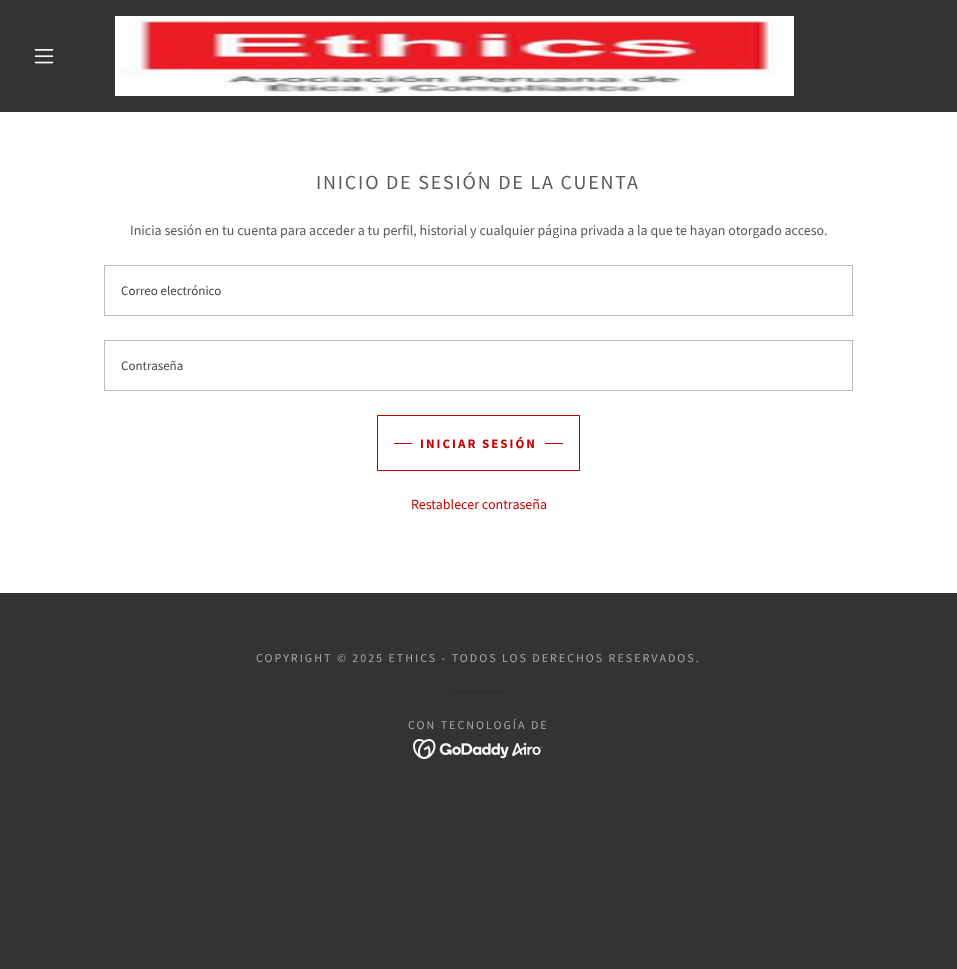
(async () => {
  const canvas = document.querySelector("canvas");
  canvas.width = 957;
  canvas.height = 969;
  const ctx = canvas.getContext("2d");
  ctx.miterLimit = 4;
  ctx.fontKerning = "normal";
  async function loadImage(src) {
    const img = new Image();
    img.src = src;
    await img.decode();
    return img;
  }

  ctx.fillStyle = "#333333";
  ctx.fillRect(0, 0, 957, 969);
  ctx.drawImage(await loadImage("img/1.png"), 34, 49, 20, 15);
  ctx.drawImage(await loadImage("img/2.png"), 115, 16, 679, 80);
  ctx.fillStyle = "#ffffff";
  ctx.fillRect(0, 112, 957, 481);
  ctx.strokeStyle = "#bbbbbb";
  ctx.strokeRect(104.5, 265.5, 748, 50);
  ctx.strokeRect(104.5, 340.5, 748, 50);
  ctx.strokeStyle = "#c70000";
  ctx.strokeRect(377.5, 415.5, 202, 55);
  for (const [x, y, w, h, color] of [
    [394, 443, 18, 1, "#c70000"],
    [545, 443, 18, 1, "#c70000"],
    [454, 691, 50, 1, "#2a2a2a"],
  ]) {
    ctx.fillStyle = color;
    ctx.fillRect(x, y, w, h);
  }
  ctx.drawImage(await loadImage("img/3.png"), 413, 739, 130, 20);
  ctx.letterSpacing = "1.8px";
  ctx.font = "20px Source Sans Pro";
  ctx.fillStyle = "#595959";
  ctx.fillText("INICIO DE SESIÓN DE LA CUENTA", 316, 189);
  ctx.letterSpacing = "0px";
  ctx.font = "14px Source Sans Pro";
  ctx.fillText("Inicia sesión en tu cuenta para acceder a tu perfil, historial y cualquier página privada a la que te hayan otorgado acceso.", 130, 235);
  ctx.font = "13px Source Sans Pro";
  ctx.fillStyle = "#474747";
  ctx.fillText("Correo electrónico", 121, 295);
  ctx.fillText("Contraseña", 121, 370);
  ctx.letterSpacing = "2px";
  ctx.font = "bold 13px Source Sans Pro";
  ctx.fillStyle = "#c70000";
  ctx.fillText("INICIAR SESIÓN", 420, 448);
  ctx.letterSpacing = "0px";
  ctx.font = "14px Source Sans Pro";
  ctx.fillText("Restablecer contraseña", 411, 509);
  ctx.letterSpacing = "2px";
  ctx.font = "12px Source Sans Pro";
  ctx.fillStyle = "#a9a9a9";
  ctx.fillText("COPYRIGHT © 2025 ETHICS - TODOS LOS DERECHOS RESERVADOS.", 256, 662);
  ctx.fillText("CON TECNOLOGÍA DE", 408, 729);
})();
